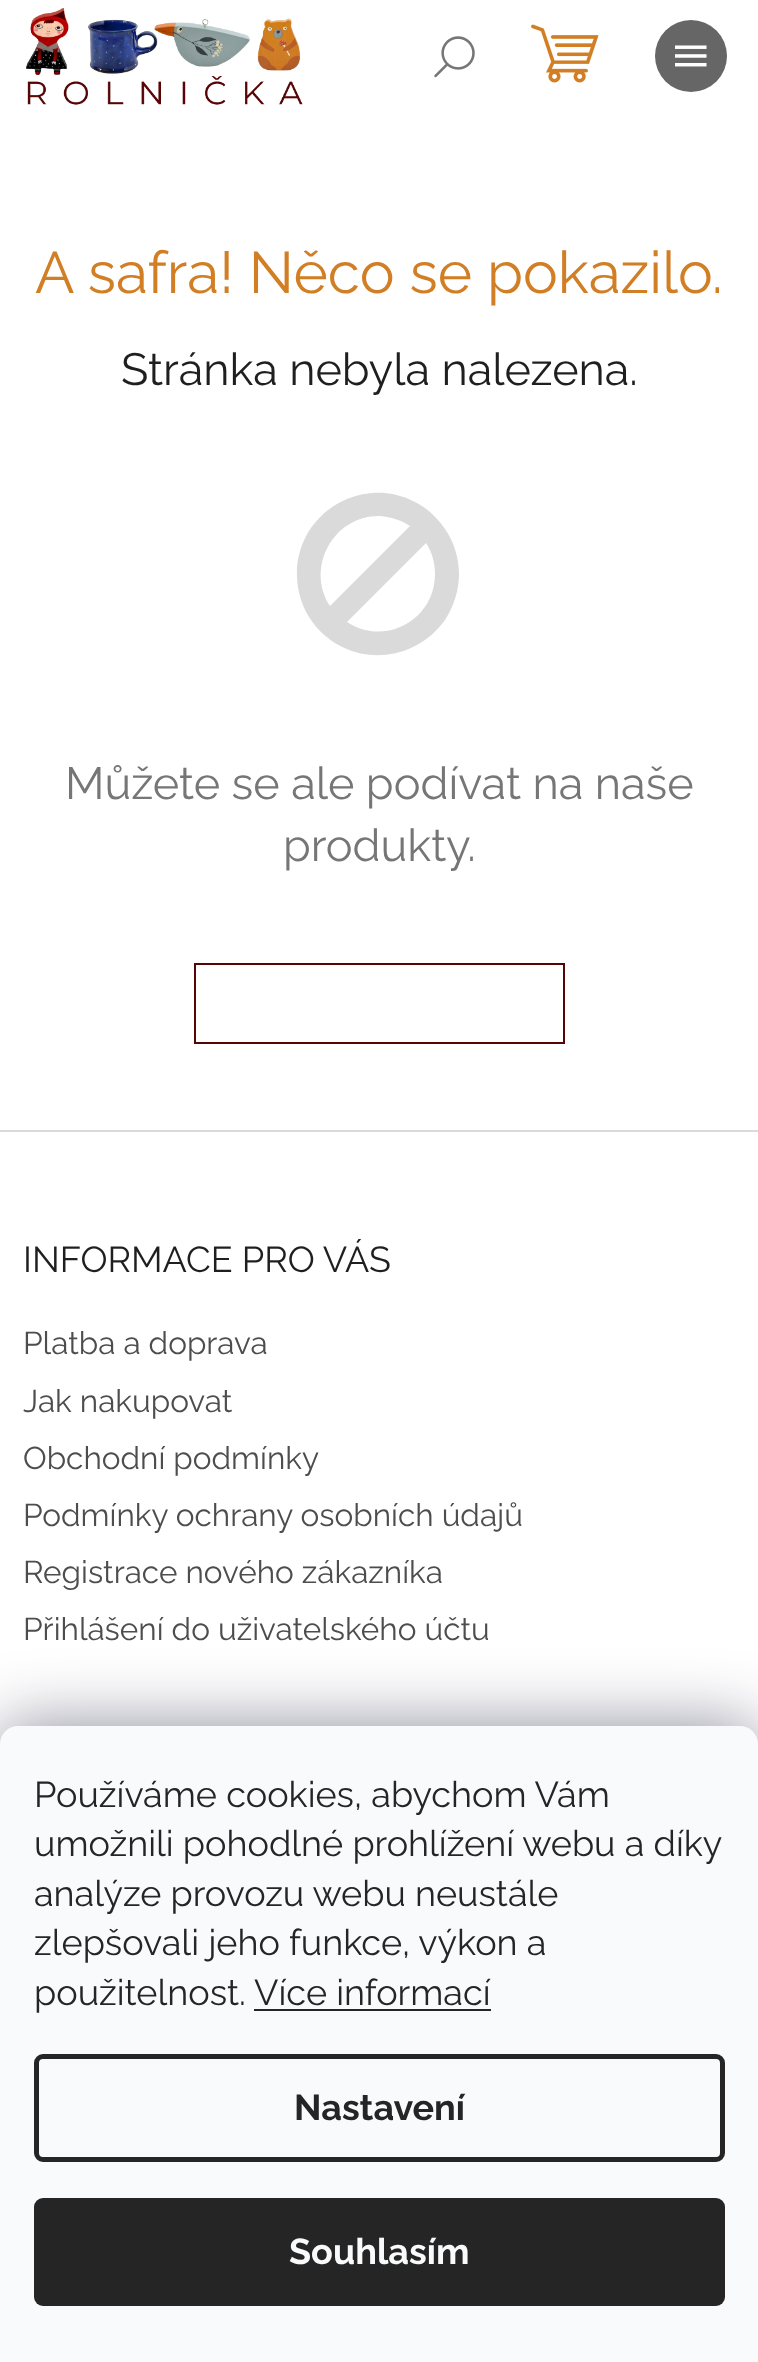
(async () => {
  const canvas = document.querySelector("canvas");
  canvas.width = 758;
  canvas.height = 2362;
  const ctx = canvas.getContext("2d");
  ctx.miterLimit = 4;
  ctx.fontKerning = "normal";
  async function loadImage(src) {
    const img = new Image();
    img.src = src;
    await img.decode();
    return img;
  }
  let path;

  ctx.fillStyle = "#ffffff";
  ctx.fillRect(0, 0, 758, 2362);
  ctx.drawImage(await loadImage("img/1.png"), 26, 8, 277, 97);
  ctx.drawImage(await loadImage("img/2.png"), 531, 24, 68, 59);
  ctx.drawImage(await loadImage("img/3.png"), 434, 36, 41, 42);
  ctx.fillStyle = "#666666";
  ctx.beginPath();
  ctx.arc(691, 56, 36, 0, Math.PI * 2);
  ctx.fill();
  ctx.drawImage(await loadImage("img/4.png"), 675, 45, 32, 22);
  ctx.fillStyle = "#dadada";
  path = new Path2D("M435 574C435 563 432 552 426 543L347 622C385 647 435 620 435 574ZM330 606L410 526C401 520 391 517 380 516C334 515 305 567 330 606ZM459 574C459 590 454 606 445 620C437 631 426 641 413 647C359 673 297 634 297 574C297 514 360 475 413 501C426 507 437 517 445 529C454 542 459 558 459 574Z");
  ctx.fill(path);
  ctx.strokeStyle = "#560506";
  ctx.lineWidth = 2;
  ctx.strokeRect(195, 964, 369, 79);
  ctx.fillRect(0, 1130, 758, 2);
  ctx.fillStyle = "rgba(27, 25, 57, 0.5)";
  ctx.filter = "blur(34px)";
  ctx.beginPath();
  ctx.roundRect(0, 1726, 758, 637, 18);
  ctx.fill();
  ctx.filter = "none";
  ctx.fillStyle = "#f8fafb";
  path = new Path2D("M18 1726H740C750 1726 758 1734 758 1744V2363H0V1744C0 1734 8 1726 18 1726Z");
  ctx.fill(path);
  ctx.fillStyle = "#252525";
  ctx.fillRect(254, 2009, 237, 2);
  ctx.beginPath();
  ctx.roundRect(36.5, 2056.5, 686, 103, 6.5);
  ctx.strokeStyle = "#252525";
  ctx.lineWidth = 5;
  ctx.stroke();
  ctx.beginPath();
  ctx.roundRect(34, 2198, 691, 108, 9);
  ctx.fill();
  ctx.font = "58.5px Raleway";
  ctx.fillStyle = "#d17e24";
  ctx.fillText("A safra! Něco se pokazilo.", 35, 293);
  ctx.font = "45px Raleway";
  ctx.fillStyle = "#1f1f1f";
  ctx.fillText("Stránka nebyla nalezena.", 121, 385);
  ctx.fillStyle = "#767676";
  ctx.fillText("Můžete se ale podívat na naše", 65, 799);
  ctx.fillText("produkty.", 283, 861);
  ctx.font = "36px Raleway";
  ctx.fillStyle = "#1f1f1f";
  ctx.fillText("INFORMACE PRO VÁS", 23, 1272);
  ctx.font = "31.5px Raleway";
  ctx.fillStyle = "#4d4d4d";
  for (const [text, x, y] of [
    ["Platba a doprava", 23, 1354],
    ["Jak nakupovat", 23, 1412],
    ["Obchodní podmínky", 23, 1469],
    ["Podmínky ochrany osobních údajů", 23, 1526],
    ["Registrace nového zákazníka", 23, 1583],
    ["Přihlášení do uživatelského účtu", 23, 1640],
  ]) {
    ctx.fillText(text, x, y);
  }
  ctx.font = "36px Raleway";
  ctx.fillStyle = "#252525";
  for (const [text, x, y] of [
    ["Používáme cookies, abychom Vám", 34, 1807],
    ["umožnili pohodlné prohlížení webu a díky", 34, 1856],
    ["analýze provozu webu neustále", 34, 1906],
    ["zlepšovali jeho funkce, výkon a", 34, 1955],
    ["použitelnost.", 34, 2005],
    ["Více informací", 254, 2005],
  ]) {
    ctx.fillText(text, x, y);
  }
  ctx.font = "bold 36px Raleway";
  ctx.fillText("Nastavení", 294, 2120);
  ctx.fillStyle = "#f8fafb";
  ctx.fillText("Souhlasím", 289, 2264);
})();
